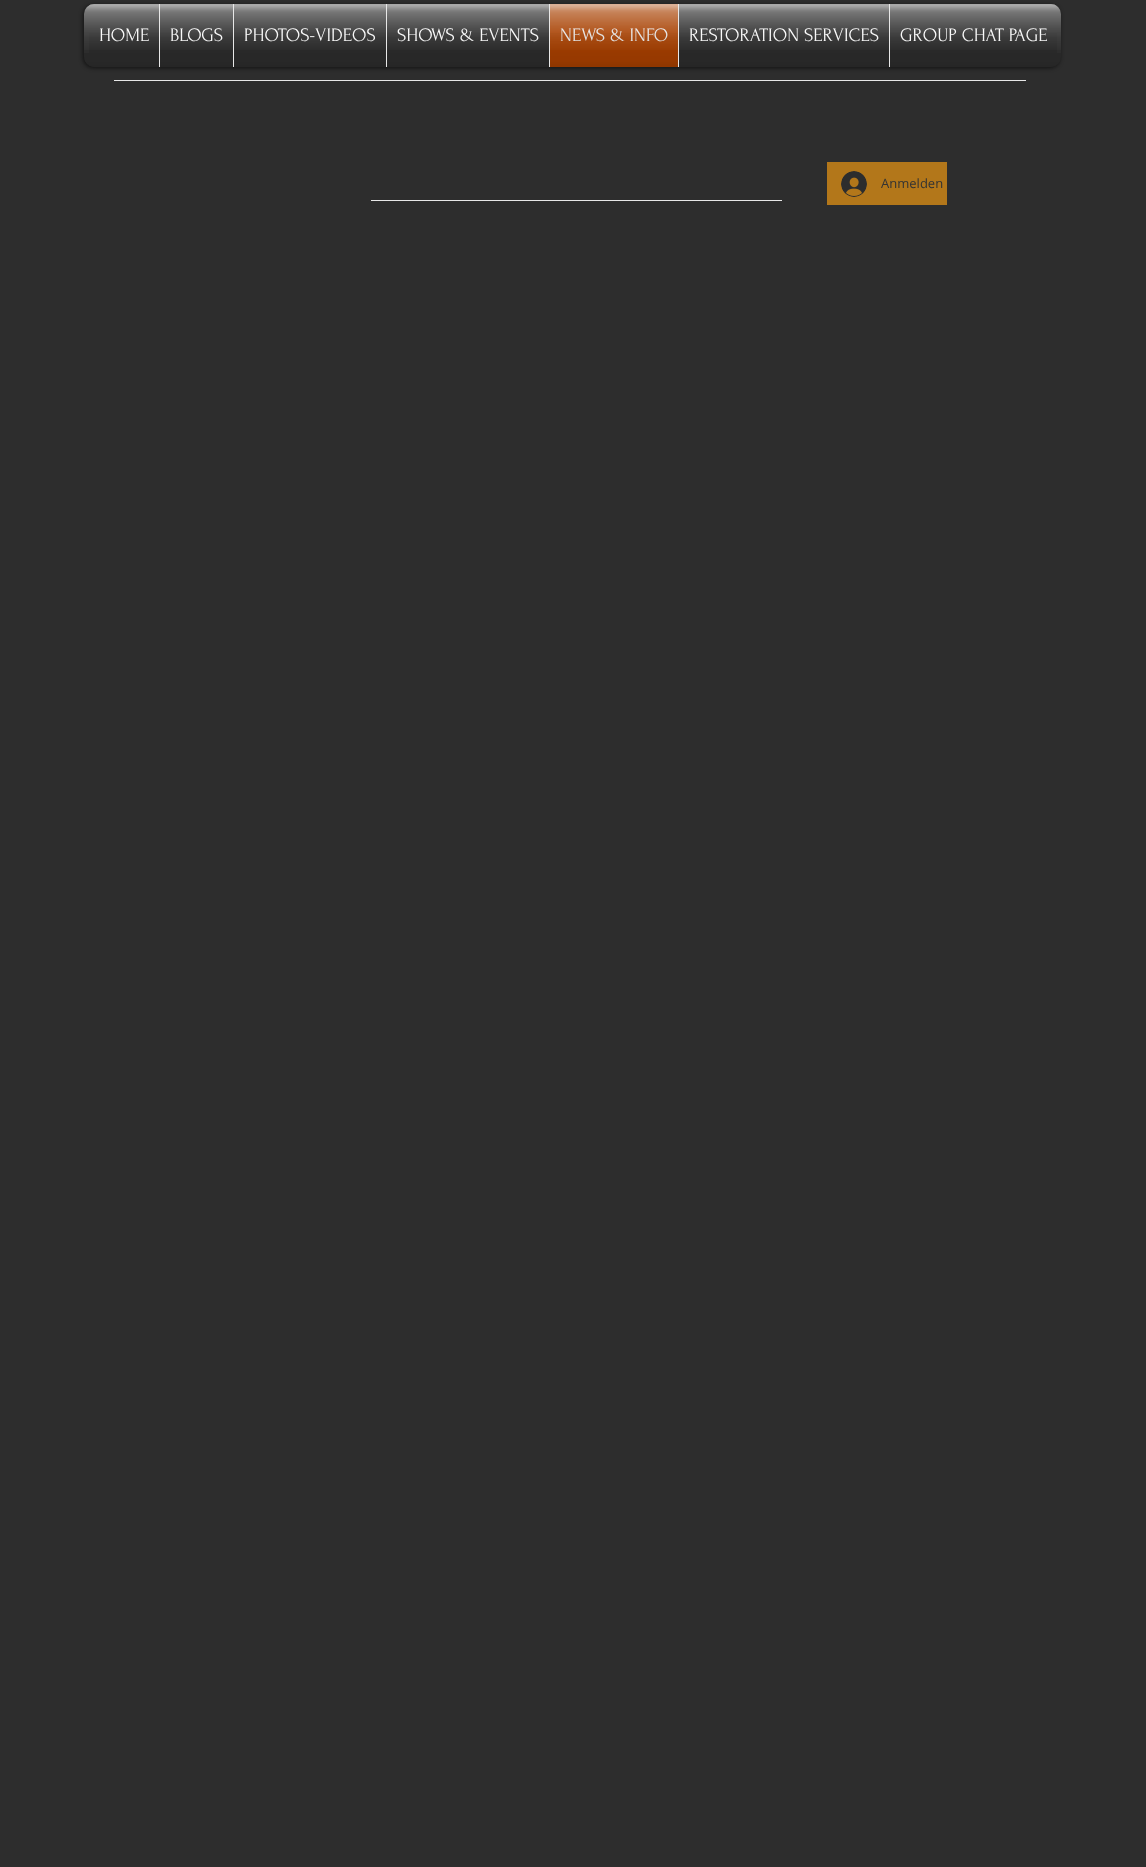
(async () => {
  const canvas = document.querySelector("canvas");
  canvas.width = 1146;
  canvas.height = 1867;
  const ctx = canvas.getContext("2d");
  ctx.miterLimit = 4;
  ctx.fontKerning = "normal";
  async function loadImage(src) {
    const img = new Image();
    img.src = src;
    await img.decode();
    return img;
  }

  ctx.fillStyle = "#2d2d2d";
  ctx.fillRect(0, 0, 1146, 1867);
  ctx.fillStyle = "rgba(0, 0, 0, 0.6)";
  ctx.filter = "blur(2px)";
  ctx.beginPath();
  ctx.roundRect(83, 5, 977, 63, 10);
  ctx.fill();
  ctx.filter = "none";
  ctx.fillStyle = "#2d2d2d";
  ctx.beginPath();
  ctx.roundRect(84, 4, 977, 63, 10);
  ctx.fill();
  ctx.drawImage(await loadImage("img/1.png"), 84, 4, 977, 46);
  ctx.drawImage(await loadImage("img/2.png"), 84, 53, 977, 14);
  ctx.save();
  ctx.beginPath();
  ctx.roundRect(84, 4, 977, 63, 10);
  ctx.clip();
  ctx.fillRect(89, 4, 70, 63);
  ctx.restore();
  for (const [x, y, w, h, color] of [
    [160, 4, 73, 63, "#2d2d2d"],
    [159, 4, 1, 63, "#e8e8e8"],
    [234, 4, 152, 63, "#2d2d2d"],
    [233, 4, 1, 63, "#e8e8e8"],
    [387, 4, 162, 63, "#2d2d2d"],
    [386, 4, 1, 63, "#e8e8e8"],
    [550, 4, 128, 63, "#a84000"],
    [549, 4, 1, 63, "#e8e8e8"],
    [679, 4, 210, 63, "#2d2d2d"],
    [678, 4, 1, 63, "#e8e8e8"],
  ]) {
    ctx.fillStyle = color;
    ctx.fillRect(x, y, w, h);
  }
  ctx.save();
  ctx.beginPath();
  ctx.roundRect(84, 4, 977, 63, 10);
  ctx.clip();
  ctx.fillStyle = "#2d2d2d";
  ctx.fillRect(890, 4, 167, 63);
  ctx.restore();
  for (const [x, y, w, h, color] of [
    [889, 4, 1, 63, "#e8e8e8"],
    [114, 80, 912, 1, "#e8e8e8"],
    [827, 162, 120, 43, "#b3771a"],
  ]) {
    ctx.fillStyle = color;
    ctx.fillRect(x, y, w, h);
  }
  ctx.drawImage(await loadImage("img/17.png"), 841, 171, 26, 26);
  ctx.fillStyle = "#e8e8e8";
  ctx.fillRect(371, 200, 411, 1);
  ctx.font = "19px Forum";
  ctx.fillStyle = "#ffffff";
  ctx.fillText("HOME", 99, 41);
  ctx.drawImage(await loadImage("img/3.png"), 89, 4, 70, 46);
  ctx.drawImage(await loadImage("img/4.png"), 89, 33, 70, 34);
  ctx.fillText("BLOGS", 170, 41);
  ctx.drawImage(await loadImage("img/5.png"), 160, 4, 73, 46);
  ctx.drawImage(await loadImage("img/6.png"), 160, 33, 73, 34);
  ctx.fillText("PHOTOS-VIDEOS", 244, 41);
  ctx.drawImage(await loadImage("img/7.png"), 234, 4, 152, 46);
  ctx.drawImage(await loadImage("img/8.png"), 234, 33, 152, 34);
  ctx.fillText("SHOWS & EVENTS", 397, 41);
  ctx.drawImage(await loadImage("img/9.png"), 387, 4, 162, 46);
  ctx.drawImage(await loadImage("img/10.png"), 387, 33, 162, 34);
  ctx.fillStyle = "#e8e8e8";
  ctx.fillText("NEWS & INFO", 560, 41);
  ctx.drawImage(await loadImage("img/11.png"), 550, 4, 128, 46);
  ctx.drawImage(await loadImage("img/12.png"), 550, 33, 128, 34);
  ctx.fillStyle = "#ffffff";
  ctx.fillText("RESTORATION SERVICES", 689, 41);
  ctx.drawImage(await loadImage("img/13.png"), 679, 4, 210, 46);
  ctx.drawImage(await loadImage("img/14.png"), 679, 33, 210, 34);
  ctx.fillText("GROUP CHAT PAGE", 900, 41);
  ctx.drawImage(await loadImage("img/15.png"), 890, 4, 167, 46);
  ctx.drawImage(await loadImage("img/16.png"), 890, 33, 167, 34);
  ctx.font = "13px Open Sans";
  ctx.fillStyle = "#333333";
  ctx.fillText("Anmelden", 881, 188);
})();
